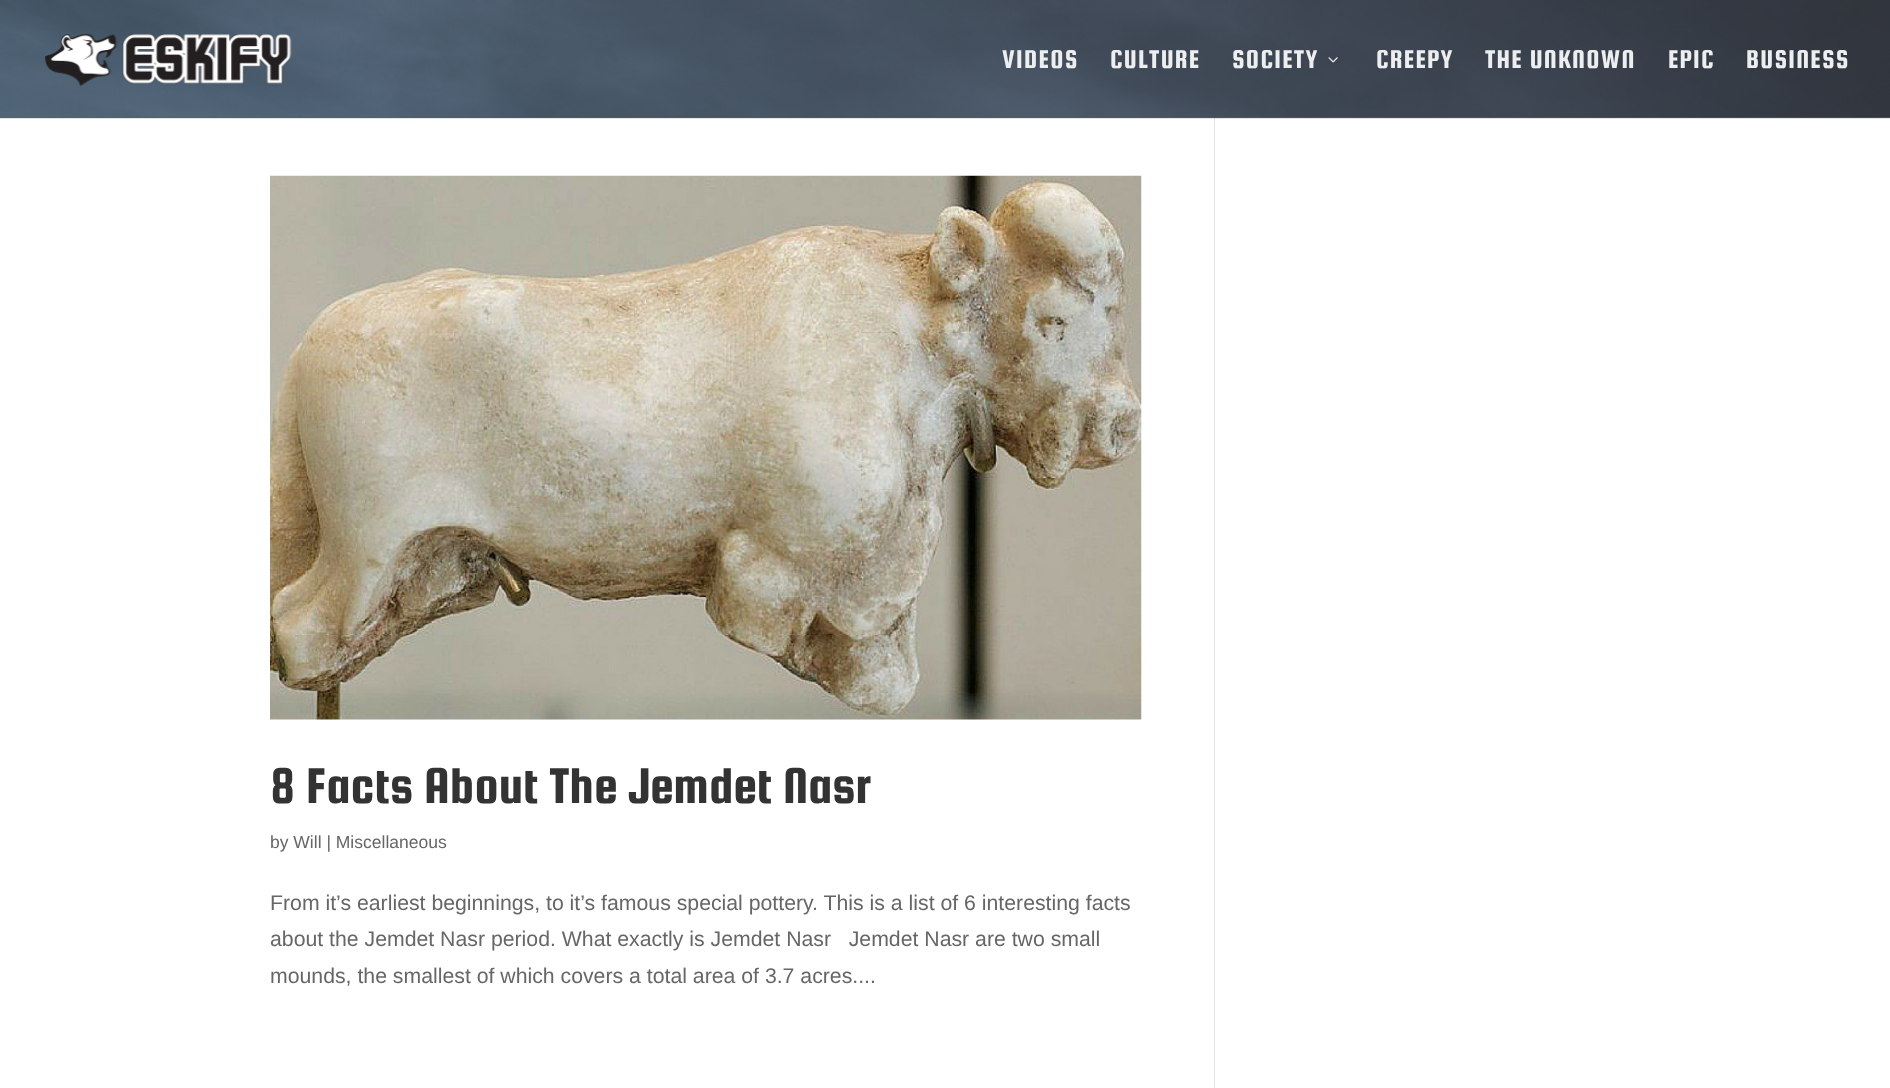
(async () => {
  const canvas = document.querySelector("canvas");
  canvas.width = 1890;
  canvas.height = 1088;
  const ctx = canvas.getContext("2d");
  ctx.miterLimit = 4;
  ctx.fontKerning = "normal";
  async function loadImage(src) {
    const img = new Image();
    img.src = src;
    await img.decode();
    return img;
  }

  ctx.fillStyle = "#ffffff";
  ctx.fillRect(0, 0, 1890, 1088);
  ctx.fillStyle = "#e6e6e6";
  ctx.fillRect(0, 118, 1890, 1);
  ctx.fillStyle = "#5b5b5b";
  ctx.fillRect(0, 0, 1890, 118);
  ctx.drawImage(await loadImage("img/1.png"), 0, 0, 1890, 118);
  ctx.drawImage(await loadImage("img/2.png"), 45, 34, 247, 53);
  ctx.drawImage(await loadImage("img/3.png"), 1328, 57, 10, 6);
  ctx.drawImage(await loadImage("img/4.png"), 270, 175, 872, 545);
  ctx.fillStyle = "#e2e2e2";
  ctx.fillRect(1214, 119, 1, 969);
  ctx.fillStyle = "#cbcbcb";
  ctx.fillRect(1214, 118, 1, 1);
  ctx.letterSpacing = "1.25px";
  ctx.font = "27.5px Squada One";
  ctx.fillStyle = "#eceeef";
  for (const [text, x, y] of [
    ["VIDEOS", 1002, 68],
    ["CULTURE", 1110, 68],
    ["SOCIETY", 1232, 68],
    ["CREEPY", 1376, 68],
    ["THE UNKNOWN", 1485, 68],
    ["EPIC", 1668, 68],
    ["BUSINESS", 1746, 68],
  ]) {
    ctx.fillText(text, x, y);
  }
  ctx.letterSpacing = "0px";
  ctx.font = "53.75px Squada One";
  ctx.fillStyle = "#333333";
  ctx.fillText("8 Facts About The Jemdet Nasr", 270, 803);
  ctx.font = "17.5px Liberation Sans";
  ctx.fillStyle = "#666666";
  ctx.fillText("by Will | Miscellaneous", 270, 848);
  ctx.font = "21.25px Liberation Sans";
  for (const [text, x, y] of [
    ["From it’s earliest beginnings, to it’s famous special pottery. This is a list of 6 interesting facts", 270, 910],
    ["about the Jemdet Nasr period. What exactly is Jemdet Nasr   Jemdet Nasr are two small", 270, 946],
    ["mounds, the smallest of which covers a total area of 3.7 acres....", 270, 983],
  ]) {
    ctx.fillText(text, x, y);
  }
})();
